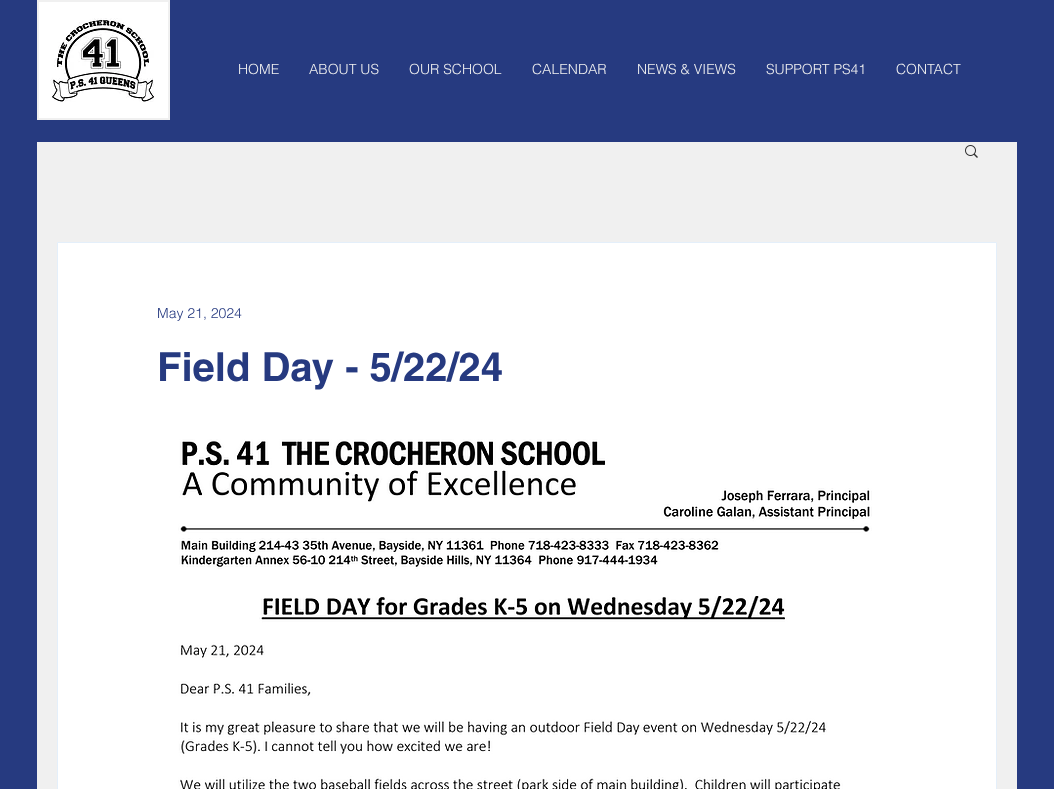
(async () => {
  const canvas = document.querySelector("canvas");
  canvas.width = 1054;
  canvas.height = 789;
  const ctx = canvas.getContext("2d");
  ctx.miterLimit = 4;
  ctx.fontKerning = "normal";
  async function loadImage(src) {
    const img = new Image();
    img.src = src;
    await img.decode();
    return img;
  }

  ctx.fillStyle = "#263a80";
  ctx.fillRect(0, 0, 1054, 789);
  ctx.fillStyle = "#ffffff";
  ctx.beginPath();
  ctx.rect(38, 1, 131, 118);
  ctx.fill();
  ctx.strokeStyle = "#f0f0f0";
  ctx.lineWidth = 2;
  ctx.stroke();
  ctx.drawImage(await loadImage("img/1.png"), 50, 18, 104, 84);
  ctx.fillStyle = "#f0f0f0";
  ctx.fillRect(37, 142, 980, 647);
  ctx.drawImage(await loadImage("img/2.png"), 965, 145, 13, 13);
  ctx.fillStyle = "#ffffff";
  ctx.beginPath();
  ctx.rect(57.5, 242.5, 939, 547);
  ctx.fill();
  ctx.strokeStyle = "#e4effa";
  ctx.lineWidth = 1;
  ctx.stroke();
  ctx.drawImage(await loadImage("img/3.png"), 178, 439, 694, 350);
  ctx.font = "300 14px helvetica";
  ctx.fillStyle = "#f0f0f0";
  for (const [text, x, y] of [
    ["HOME", 238, 74],
    ["ABOUT US", 309, 74],
    ["OUR SCHOOL", 409, 74],
    ["CALENDAR", 532, 74],
    ["NEWS & VIEWS", 637, 74],
    ["SUPPORT PS41", 766, 74],
    ["CONTACT", 896, 74],
  ]) {
    ctx.fillText(text, x, y);
  }
  ctx.fillStyle = "#263a80";
  ctx.fillText("May 21, 2024", 157, 318);
  ctx.font = "bold 40px helvetica";
  ctx.fillText("Field Day - 5/22/24", 157, 381);
})();
